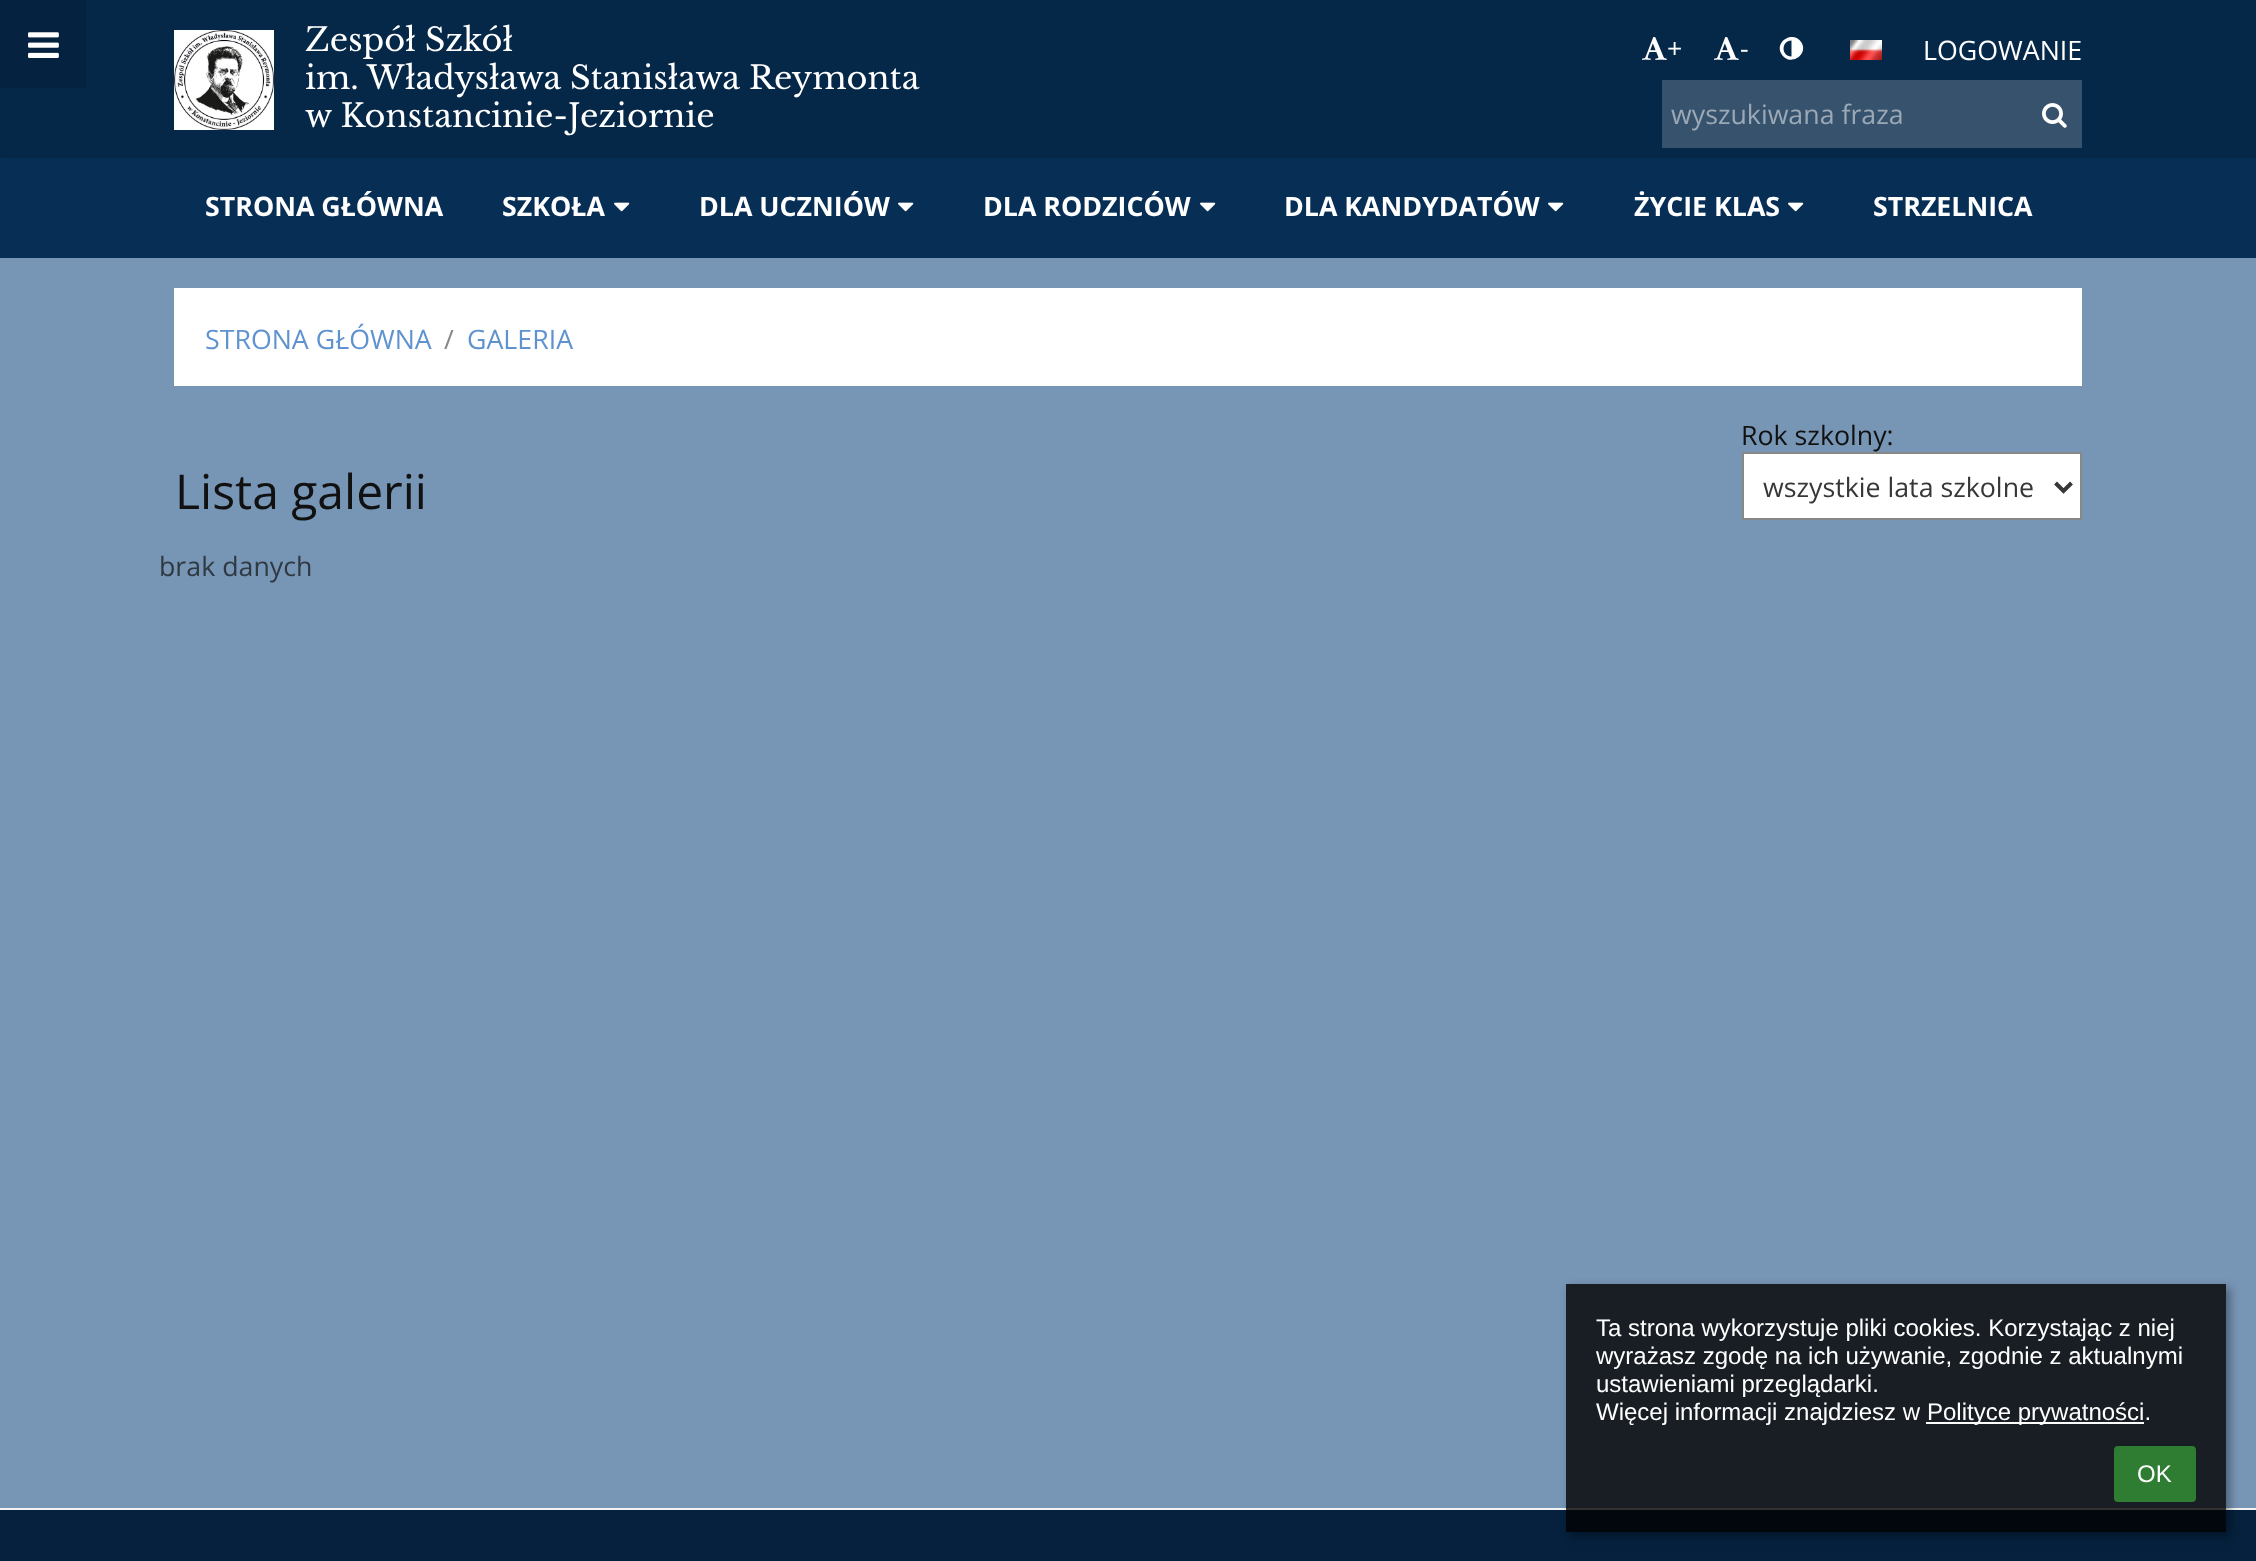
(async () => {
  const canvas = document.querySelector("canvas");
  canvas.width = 2256;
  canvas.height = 1561;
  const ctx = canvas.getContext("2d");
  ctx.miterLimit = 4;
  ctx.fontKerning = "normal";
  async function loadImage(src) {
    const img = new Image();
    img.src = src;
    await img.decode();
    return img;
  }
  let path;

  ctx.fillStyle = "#072e55";
  ctx.fillRect(0, 0, 2256, 1561);
  ctx.fillStyle = "#052748";
  ctx.fillRect(0, 0, 2256, 158);
  ctx.fillStyle = "#052341";
  ctx.fillRect(0, 0, 86, 88);
  ctx.drawImage(await loadImage("img/1.png"), 28, 32, 31, 26);
  ctx.drawImage(await loadImage("img/2.png"), 174, 30, 100, 100);
  ctx.drawImage(await loadImage("img/3.png"), 1642, 37, 25, 23);
  ctx.drawImage(await loadImage("img/3.png"), 1714, 37, 25, 23);
  ctx.fillStyle = "#ffffff";
  path = new Path2D("M1791.5 56.5V40.5C1781 40.5 1781 56.5 1791.5 56.5ZM1801.5 42.5C1809 55.5 1789 67 1781.5 54C1774 41.5 1793.5 30 1801.5 42.5Z");
  ctx.fill(path);
  ctx.drawImage(await loadImage("img/4.png"), 1850, 40, 32, 20);
  ctx.fillStyle = "#37526d";
  ctx.fillRect(1662, 80, 420, 68);
  ctx.drawImage(await loadImage("img/5.png"), 2042, 103, 25, 25);
  ctx.save();
  ctx.beginPath();
  ctx.rect(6, 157, 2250, 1);
  ctx.clip();
  ctx.fillStyle = "rgba(0, 0, 0, 0.4)";
  ctx.filter = "blur(3px)";
  ctx.beginPath();
  ctx.rect(4, 162, 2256, 100);
  ctx.fill();
  ctx.filter = "none";
  ctx.restore();
  ctx.drawImage(await loadImage("img/6.png"), 614, 202, 16, 10);
  ctx.drawImage(await loadImage("img/6.png"), 898, 202, 16, 10);
  ctx.drawImage(await loadImage("img/6.png"), 1200, 202, 16, 10);
  ctx.drawImage(await loadImage("img/6.png"), 1548, 202, 16, 10);
  ctx.drawImage(await loadImage("img/6.png"), 1788, 202, 16, 10);
  for (const [x, y, w, h, color] of [
    [0, 258, 2256, 1250, "#7795b5"],
    [1566, 1284, 660, 224, "#181e24"],
    [174, 288, 1908, 98, "#ffffff"],
  ]) {
    ctx.fillStyle = color;
    ctx.fillRect(x, y, w, h);
  }
  ctx.beginPath();
  ctx.rect(1743, 453, 338, 66);
  ctx.fill();
  ctx.strokeStyle = "#888888";
  ctx.lineWidth = 2;
  ctx.stroke();
  path = new Path2D("M2055.5 483L2063.5 491L2071.5 483");
  ctx.strokeStyle = "#373737";
  ctx.lineWidth = 4;
  ctx.stroke(path);
  for (const [x, y, w, h, color] of [
    [0, 1510, 2256, 51, "#05213d"],
    [1566, 1510, 660, 22, "#01070c"],
    [0, 1508, 2256, 2, "#f3f3f3"],
    [1566, 1508, 660, 2, "#313131"],
  ]) {
    ctx.fillStyle = color;
    ctx.fillRect(x, y, w, h);
  }
  ctx.save();
  path = new Path2D("M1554 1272H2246V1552H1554ZM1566 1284H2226V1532H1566Z");
  ctx.clip(path, "evenodd");
  ctx.fillStyle = "rgba(0, 0, 0, 0.35)";
  ctx.filter = "blur(5px)";
  ctx.beginPath();
  ctx.rect(1570, 1288, 660, 248);
  ctx.fill();
  ctx.filter = "none";
  ctx.restore();
  ctx.fillStyle = "#ffffff";
  ctx.fillRect(1926, 1422, 218, 2);
  ctx.fillStyle = "#2e7d32";
  ctx.beginPath();
  ctx.roundRect(2114, 1446, 82, 56, 4);
  ctx.fill();
  ctx.font = "32px Libre Baskerville";
  ctx.fillStyle = "#ffffff";
  for (const [text, x, y] of [
    ["Zespół Szkół", 305, 51],
    ["im. Władysława Stanisława Reymonta", 305, 89],
    ["w Konstancinie-Jeziornie", 305, 127],
  ]) {
    ctx.fillText(text, x, y);
  }
  ctx.font = "26.75px Open Sans";
  for (const [text, x, y] of [
    ["+", 1667, 58],
    ["-", 1740, 58],
    ["LOGOWANIE", 1923, 60],
  ]) {
    ctx.fillText(text, x, y);
  }
  ctx.fillStyle = "#9ba9b6";
  ctx.fillText("wyszukiwana fraza", 1671, 124);
  ctx.font = "bold 26.75px Open Sans";
  ctx.fillStyle = "#ffffff";
  for (const [text, x, y] of [
    ["STRONA GŁÓWNA", 205, 216],
    ["SZKOŁA", 502, 216],
    ["DLA UCZNIÓW", 699, 216],
    ["DLA RODZICÓW", 983, 216],
    ["DLA KANDYDATÓW", 1284, 216],
    ["ŻYCIE KLAS", 1634, 216],
    ["STRZELNICA", 1873, 216],
  ]) {
    ctx.fillText(text, x, y);
  }
  ctx.font = "26.75px Open Sans";
  ctx.fillStyle = "#5f93d0";
  ctx.fillText("STRONA GŁÓWNA", 205, 349);
  ctx.fillStyle = "#888888";
  ctx.fillText("/", 444, 349);
  ctx.fillStyle = "#5f93d0";
  ctx.fillText("GALERIA", 467, 349);
  ctx.font = "48px Open Sans";
  ctx.fillStyle = "#111111";
  ctx.fillText("Lista galerii", 175, 509);
  ctx.font = "26.75px Open Sans";
  ctx.fillText("Rok szkolny:", 1741, 445);
  ctx.fillStyle = "#373737";
  ctx.fillText("wszystkie lata szkolne", 1763, 497);
  ctx.fillStyle = "#303942";
  ctx.fillText("brak danych", 159, 576);
  ctx.font = "24px Liberation Sans";
  ctx.fillStyle = "#ffffff";
  for (const [text, x, y] of [
    ["Ta strona wykorzystuje pliki cookies. Korzystając z niej", 1596, 1336],
    ["wyrażasz zgodę na ich używanie, zgodnie z aktualnymi", 1596, 1364],
    ["ustawieniami przeglądarki.", 1596, 1392],
    ["Więcej informacji znajdziesz w", 1596, 1420],
    ["Polityce prywatności.", 1927, 1420],
    ["OK", 2137, 1482],
  ]) {
    ctx.fillText(text, x, y);
  }
})();
